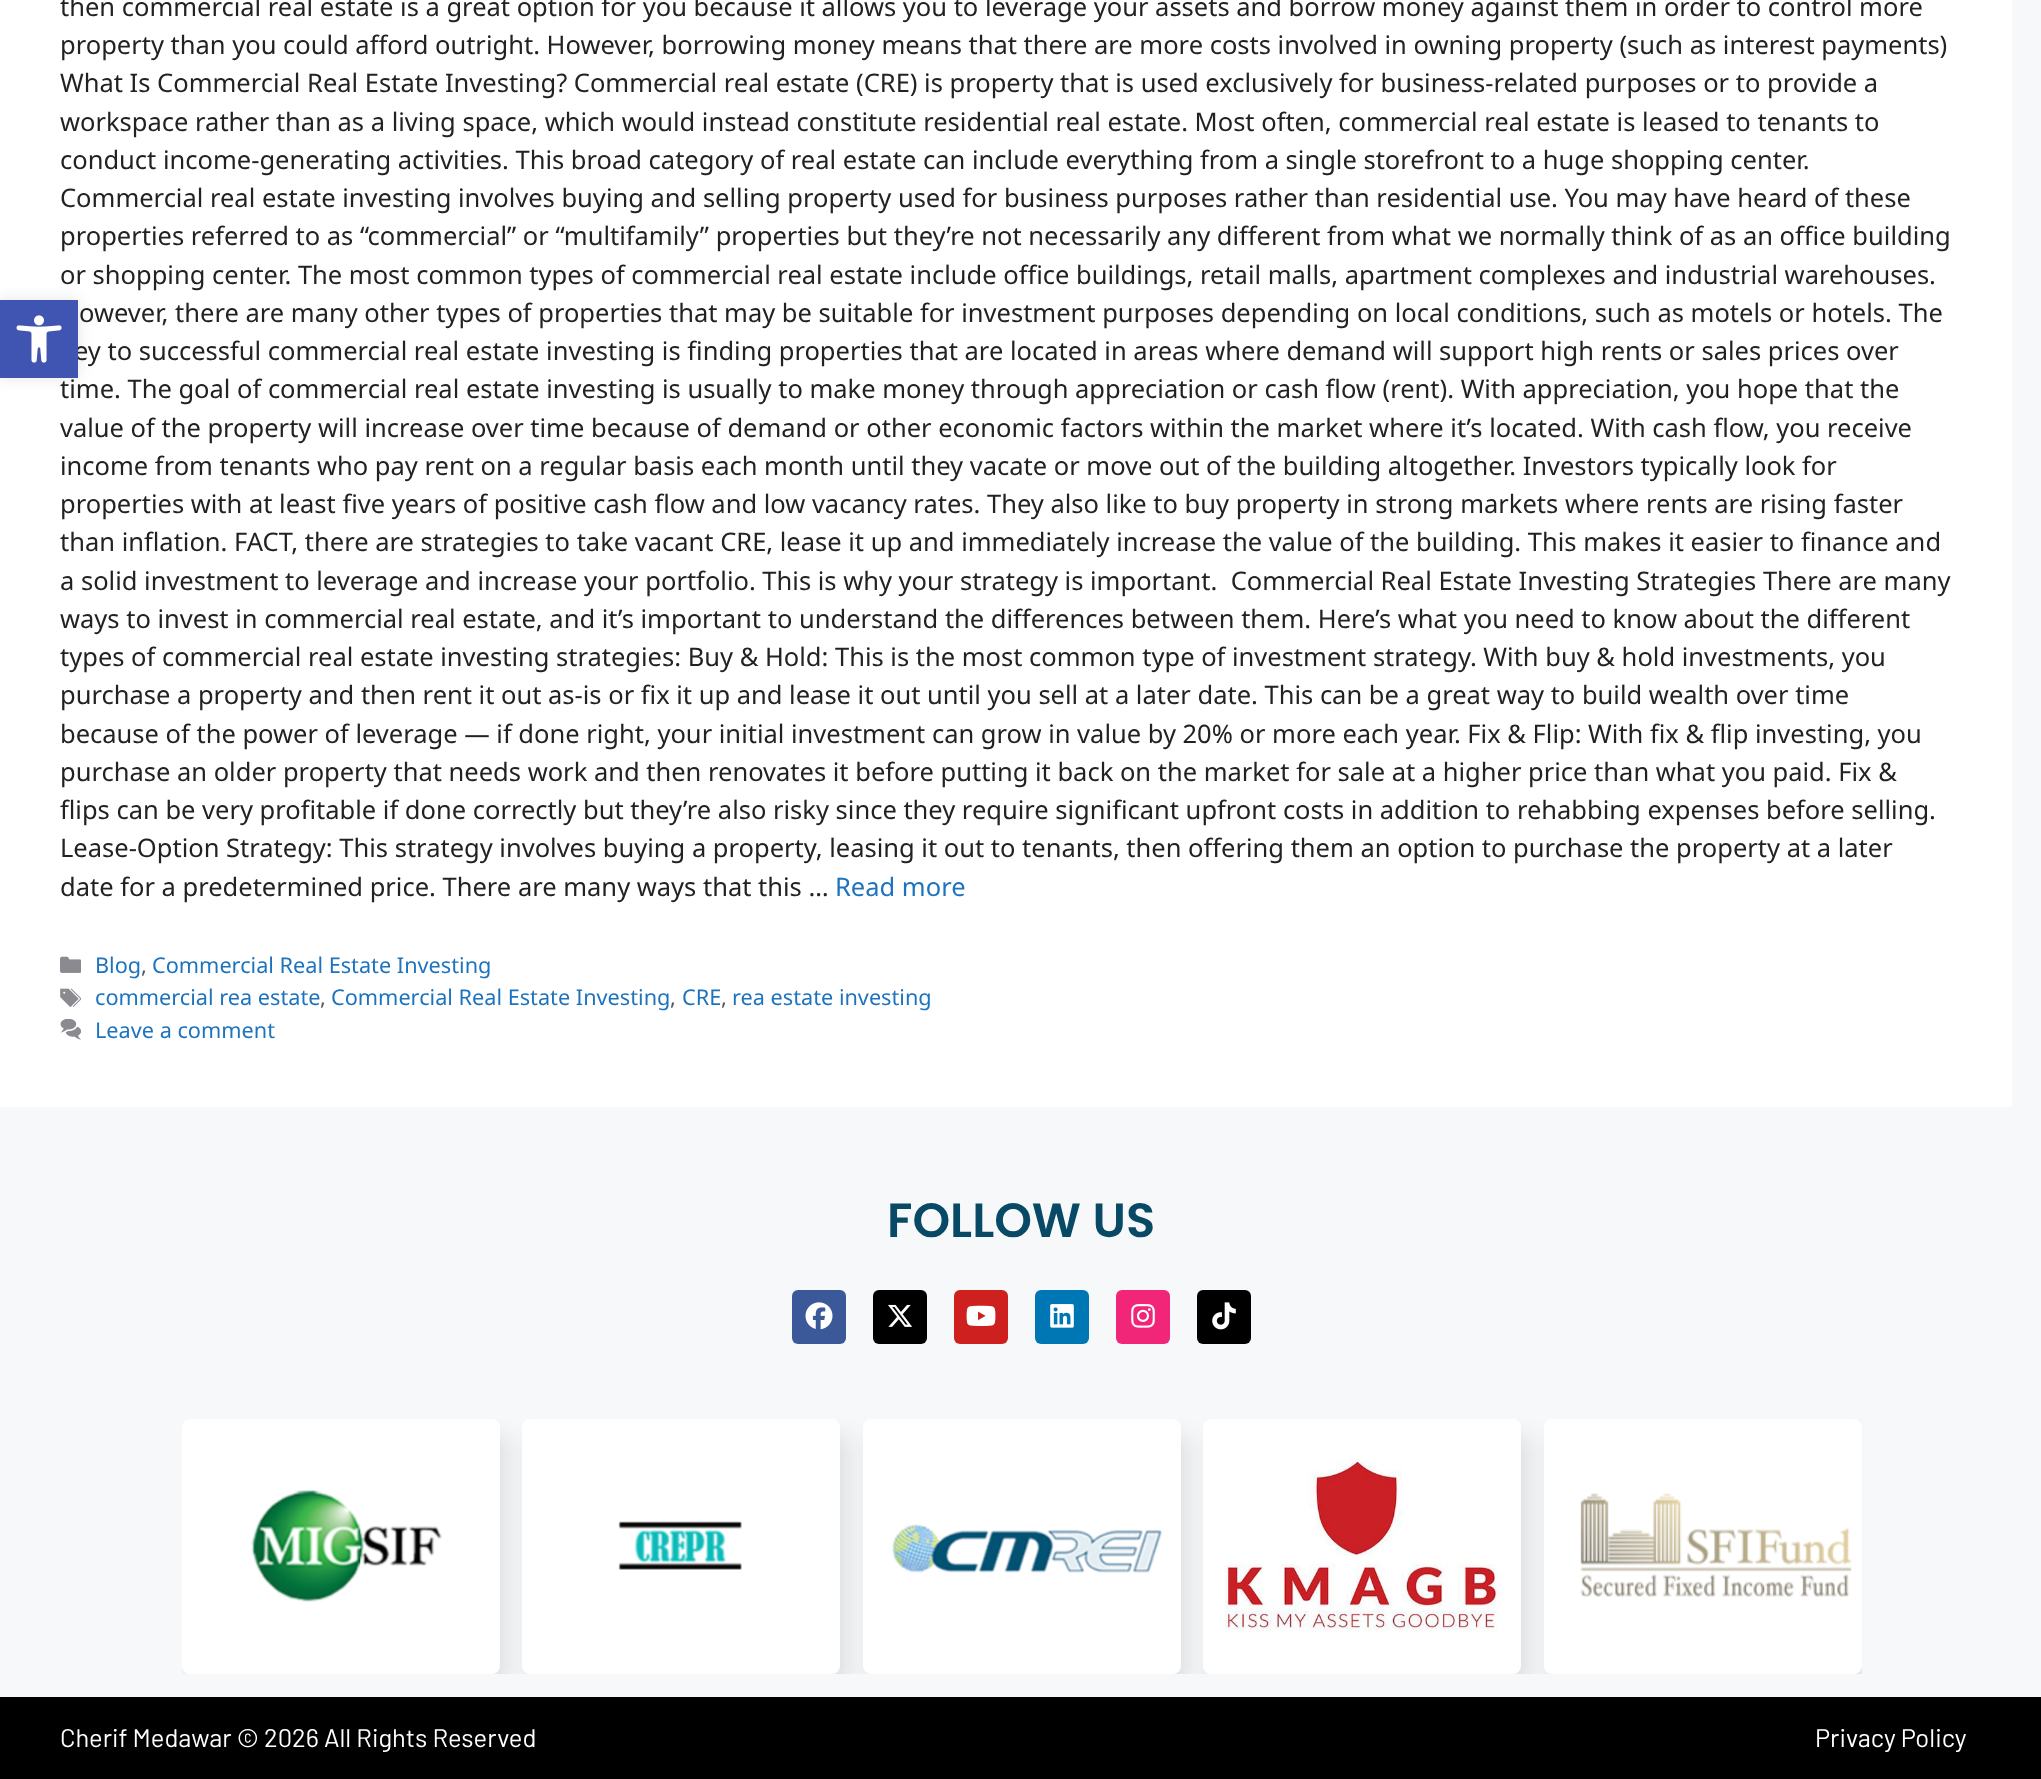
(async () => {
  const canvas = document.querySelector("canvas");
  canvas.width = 2041;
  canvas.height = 1779;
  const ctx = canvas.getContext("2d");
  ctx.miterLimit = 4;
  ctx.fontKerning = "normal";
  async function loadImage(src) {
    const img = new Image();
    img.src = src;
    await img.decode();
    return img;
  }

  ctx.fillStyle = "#f7f8f9";
  ctx.fillRect(0, 0, 2041, 1779);
  ctx.fillStyle = "#ffffff";
  ctx.fillRect(0, 0, 2012, 1107);
  ctx.fillStyle = "rgba(0, 0, 0, 0.1)";
  ctx.filter = "blur(7.5px)";
  ctx.beginPath();
  ctx.rect(0, 300, 78, 78);
  ctx.fill();
  ctx.filter = "none";
  ctx.drawImage(await loadImage("img/2.png"), 60, 956, 21, 17);
  ctx.drawImage(await loadImage("img/3.png"), 60, 988, 21, 19);
  ctx.drawImage(await loadImage("img/4.png"), 60, 1019, 21, 21);
  ctx.fillStyle = "#3b5998";
  ctx.beginPath();
  ctx.roundRect(792, 1290, 54, 54, 6);
  ctx.fill();
  ctx.drawImage(await loadImage("img/5.png"), 805, 1302, 28, 28);
  ctx.fillStyle = "#000000";
  ctx.beginPath();
  ctx.roundRect(873, 1290, 54, 54, 6);
  ctx.fill();
  ctx.drawImage(await loadImage("img/6.png"), 888, 1304, 25, 23);
  ctx.fillStyle = "#cd201f";
  ctx.beginPath();
  ctx.roundRect(954, 1290, 54, 54, 6);
  ctx.fill();
  ctx.drawImage(await loadImage("img/7.png"), 966, 1305, 30, 21);
  ctx.fillStyle = "#0077b5";
  ctx.beginPath();
  ctx.roundRect(1035, 1290, 54, 54, 6);
  ctx.fill();
  ctx.drawImage(await loadImage("img/8.png"), 1050, 1304, 24, 24);
  ctx.fillStyle = "#f22679";
  ctx.beginPath();
  ctx.roundRect(1116, 1290, 54, 54, 6);
  ctx.fill();
  ctx.drawImage(await loadImage("img/9.png"), 1131, 1304, 24, 24);
  ctx.fillStyle = "#000000";
  ctx.beginPath();
  ctx.roundRect(1197, 1290, 54, 54, 6);
  ctx.fill();
  ctx.drawImage(await loadImage("img/10.png"), 1212, 1302, 24, 28);
  ctx.fillRect(0, 1697, 2041, 82);
  ctx.save();
  ctx.beginPath();
  ctx.rect(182, 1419, 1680, 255);
  ctx.clip();
  ctx.fillStyle = "rgba(0, 0, 0, 0.1)";
  ctx.filter = "blur(11px)";
  ctx.beginPath();
  ctx.roundRect(189, 1434, 318, 255, 8);
  ctx.fill();
  ctx.filter = "none";
  ctx.restore();
  ctx.fillStyle = "#ffffff";
  ctx.beginPath();
  ctx.roundRect(182, 1419, 318, 255, 8);
  ctx.fill();
  ctx.drawImage(await loadImage("img/11.png"), 250, 1490, 192, 112);
  ctx.save();
  ctx.beginPath();
  ctx.rect(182, 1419, 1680, 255);
  ctx.clip();
  ctx.fillStyle = "rgba(0, 0, 0, 0.1)";
  ctx.filter = "blur(11px)";
  ctx.beginPath();
  ctx.roundRect(530, 1434, 318, 255, 8);
  ctx.fill();
  ctx.filter = "none";
  ctx.restore();
  ctx.beginPath();
  ctx.roundRect(522, 1419, 318, 255, 8);
  ctx.fill();
  ctx.drawImage(await loadImage("img/12.png"), 618, 1521, 124, 49);
  ctx.save();
  ctx.beginPath();
  ctx.rect(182, 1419, 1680, 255);
  ctx.clip();
  ctx.fillStyle = "rgba(0, 0, 0, 0.1)";
  ctx.filter = "blur(11px)";
  ctx.beginPath();
  ctx.roundRect(870, 1434, 318, 255, 8);
  ctx.fill();
  ctx.filter = "none";
  ctx.restore();
  ctx.beginPath();
  ctx.roundRect(863, 1419, 318, 255, 8);
  ctx.fill();
  ctx.drawImage(await loadImage("img/13.png"), 892, 1524, 270, 49);
  ctx.save();
  ctx.beginPath();
  ctx.rect(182, 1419, 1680, 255);
  ctx.clip();
  ctx.fillStyle = "rgba(0, 0, 0, 0.1)";
  ctx.filter = "blur(11px)";
  ctx.beginPath();
  ctx.roundRect(1211, 1434, 318, 255, 8);
  ctx.fill();
  ctx.filter = "none";
  ctx.restore();
  ctx.beginPath();
  ctx.roundRect(1203, 1419, 318, 255, 8);
  ctx.fill();
  ctx.drawImage(await loadImage("img/14.png"), 1223, 1459, 281, 174);
  ctx.save();
  ctx.beginPath();
  ctx.rect(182, 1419, 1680, 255);
  ctx.clip();
  ctx.fillStyle = "rgba(0, 0, 0, 0.1)";
  ctx.filter = "blur(11px)";
  ctx.beginPath();
  ctx.roundRect(1551, 1434, 318, 255, 8);
  ctx.fill();
  ctx.filter = "none";
  ctx.restore();
  ctx.beginPath();
  ctx.roundRect(1544, 1419, 318, 255, 8);
  ctx.fill();
  ctx.drawImage(await loadImage("img/15.png"), 1580, 1493, 272, 104);
  ctx.font = "25.5px Noto Sans";
  ctx.fillStyle = "#222222";
  for (const [text, x, y] of [
    ["then commercial real estate is a great option for you because it allows you to leverage your assets and borrow money against them in order to control more", 60, 16],
    ["property than you could afford outright. However, borrowing money means that there are more costs involved in owning property (such as interest payments)", 60, 54],
    ["What Is Commercial Real Estate Investing? Commercial real estate (CRE) is property that is used exclusively for business-related purposes or to provide a", 60, 92],
    ["workspace rather than as a living space, which would instead constitute residential real estate. Most often, commercial real estate is leased to tenants to", 60, 131],
    ["conduct income-generating activities. This broad category of real estate can include everything from a single storefront to a huge shopping center.", 60, 169],
    ["Commercial real estate investing involves buying and selling property used for business purposes rather than residential use. You may have heard of these", 60, 207],
    ["properties referred to as “commercial” or “multifamily” properties but they’re not necessarily any different from what we normally think of as an office building", 60, 245],
    ["or shopping center. The most common types of commercial real estate include office buildings, retail malls, apartment complexes and industrial warehouses.", 60, 284],
    ["owever, there are many other types of properties that may be suitable for investment purposes depending on local conditions, such as motels or hotels. The", 79, 322],
    ["ey to successful commercial real estate investing is finding properties that are located in areas where demand will support high rents or sales prices over", 74, 360],
  ]) {
    ctx.fillText(text, x, y);
  }
  ctx.fillStyle = "#4054b2";
  ctx.fillRect(0, 300, 78, 78);
  ctx.drawImage(await loadImage("img/1.png"), 16, 315, 46, 48);
  ctx.fillStyle = "#222222";
  for (const [text, x, y] of [
    ["time. The goal of commercial real estate investing is usually to make money through appreciation or cash flow (rent). With appreciation, you hope that the", 60, 398],
    ["value of the property will increase over time because of demand or other economic factors within the market where it’s located. With cash flow, you receive", 60, 437],
    ["income from tenants who pay rent on a regular basis each month until they vacate or move out of the building altogether. Investors typically look for", 60, 475],
    ["properties with at least five years of positive cash flow and low vacancy rates. They also like to buy property in strong markets where rents are rising faster", 60, 513],
    ["than inflation. FACT, there are strategies to take vacant CRE, lease it up and immediately increase the value of the building. This makes it easier to finance and", 60, 551],
    ["a solid investment to leverage and increase your portfolio. This is why your strategy is important.  Commercial Real Estate Investing Strategies There are many", 60, 590],
    ["ways to invest in commercial real estate, and it’s important to understand the differences between them. Here’s what you need to know about the different", 60, 628],
    ["types of commercial real estate investing strategies: Buy & Hold: This is the most common type of investment strategy. With buy & hold investments, you", 60, 666],
    ["purchase a property and then rent it out as-is or fix it up and lease it out until you sell at a later date. This can be a great way to build wealth over time", 60, 704],
    ["because of the power of leverage — if done right, your initial investment can grow in value by 20% or more each year. Fix & Flip: With fix & flip investing, you", 60, 743],
    ["purchase an older property that needs work and then renovates it before putting it back on the market for sale at a higher price than what you paid. Fix &", 60, 781],
    ["flips can be very profitable if done correctly but they’re also risky since they require significant upfront costs in addition to rehabbing expenses before selling.", 60, 819],
    ["Lease-Option Strategy: This strategy involves buying a property, leasing it out to tenants, then offering them an option to purchase the property at a later", 60, 857],
    ["date for a predetermined price. There are many ways that this …", 60, 896],
  ]) {
    ctx.fillText(text, x, y);
  }
  ctx.fillStyle = "#1e73be";
  ctx.fillText("Read more", 835, 896);
  ctx.font = "21.7px Noto Sans";
  ctx.fillText("Blog", 95, 973);
  ctx.fillStyle = "#575760";
  ctx.fillText(",", 141, 973);
  ctx.fillStyle = "#1e73be";
  ctx.fillText("Commercial Real Estate Investing", 152, 973);
  ctx.fillText("commercial rea estate", 95, 1005);
  ctx.fillStyle = "#575760";
  ctx.fillText(",", 320, 1005);
  ctx.fillStyle = "#1e73be";
  ctx.fillText("Commercial Real Estate Investing", 331, 1005);
  ctx.fillStyle = "#575760";
  ctx.fillText(",", 670, 1005);
  ctx.fillStyle = "#1e73be";
  ctx.fillText("CRE", 682, 1005);
  ctx.fillStyle = "#575760";
  ctx.fillText(",", 721, 1005);
  ctx.fillStyle = "#1e73be";
  ctx.fillText("rea estate investing", 732, 1005);
  ctx.fillText("Leave a comment", 95, 1038);
  ctx.font = "600 48px Poppins";
  ctx.fillStyle = "#084966";
  ctx.fillText("FOLLOW US", 887, 1237);
  ctx.font = "25.5px Barlow";
  ctx.fillStyle = "#ffffff";
  ctx.fillText("Cherif Medawar © 2026 All Rights Reserved", 60, 1747);
  ctx.fillText("Privacy Policy", 1815, 1747);
})();
